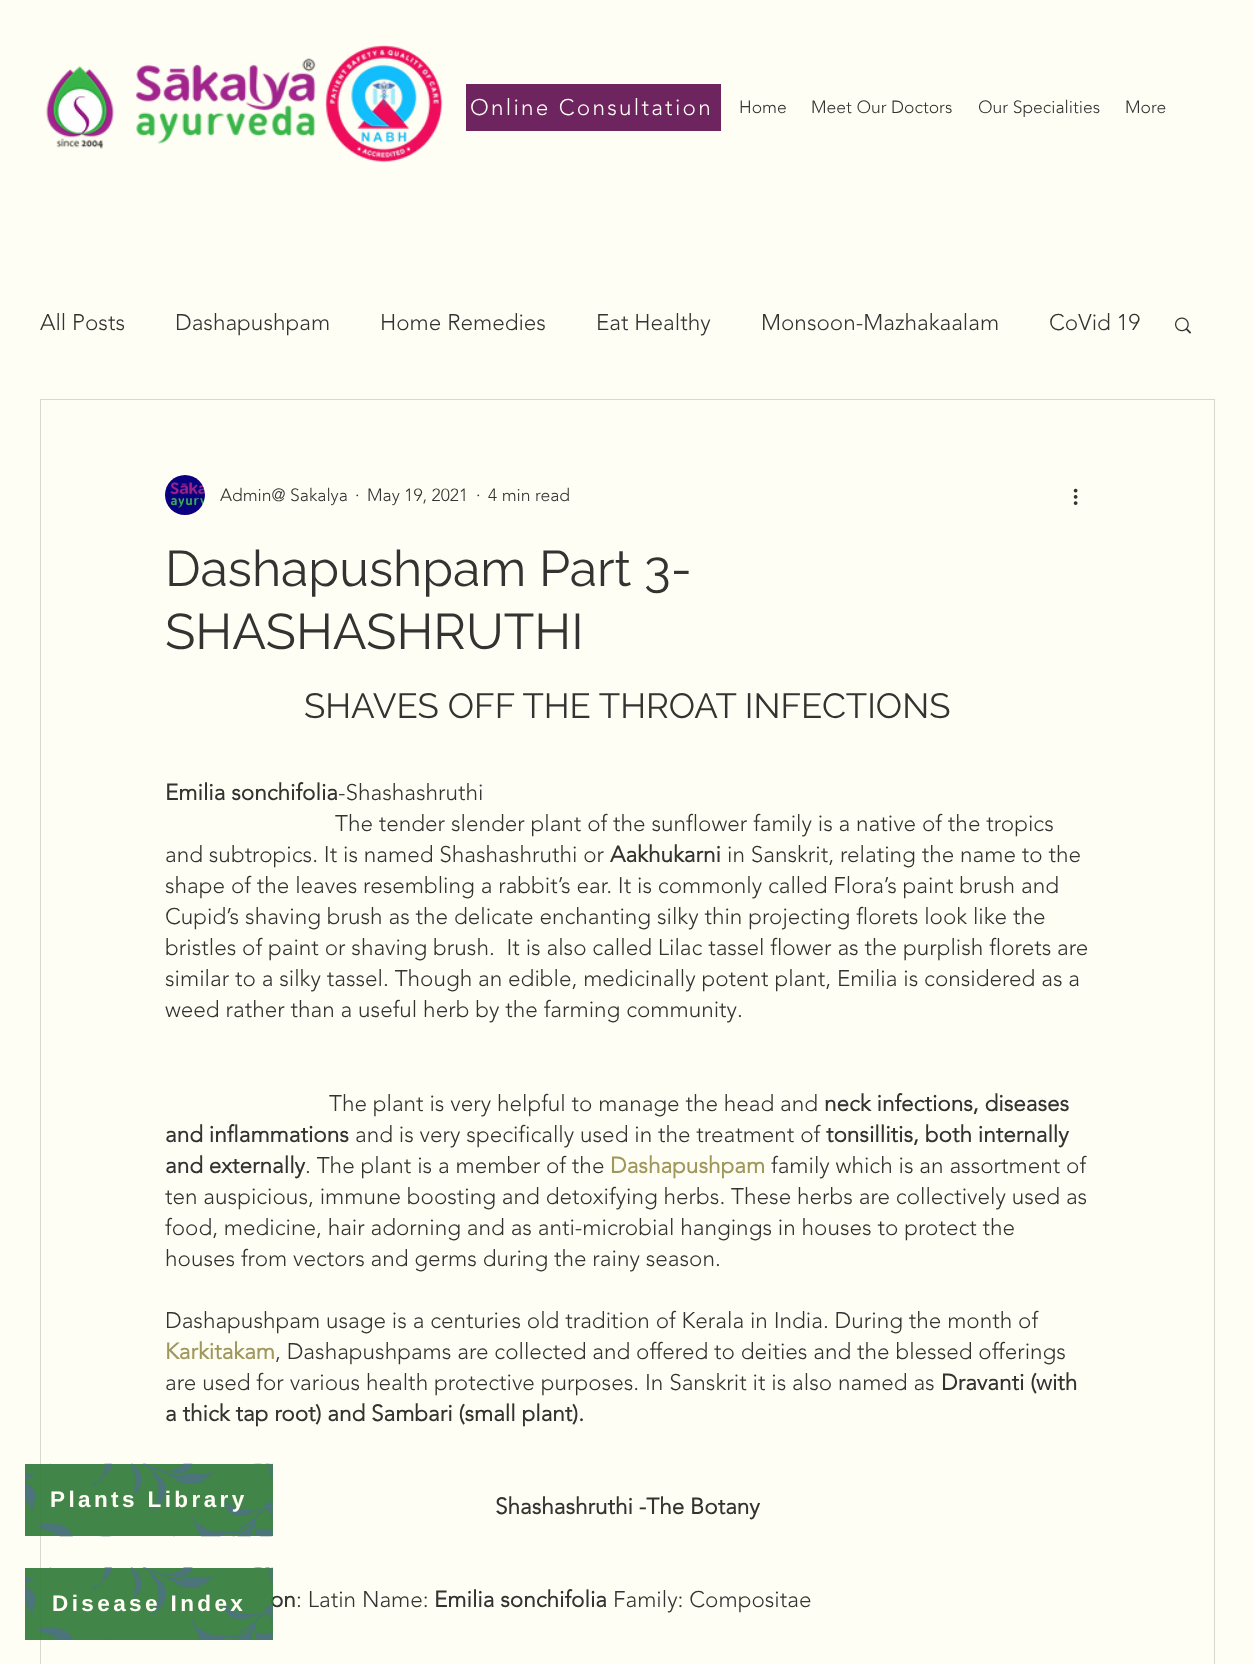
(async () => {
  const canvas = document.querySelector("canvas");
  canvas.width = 1254;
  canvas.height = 1664;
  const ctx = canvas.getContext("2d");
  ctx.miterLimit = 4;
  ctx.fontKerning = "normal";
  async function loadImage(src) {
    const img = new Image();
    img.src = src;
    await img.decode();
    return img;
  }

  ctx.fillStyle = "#fefef4";
  ctx.fillRect(0, 0, 1254, 1664);
  ctx.drawImage(await loadImage("img/1.png"), 46, 58, 270, 91);
  ctx.drawImage(await loadImage("img/2.png"), 325, 45, 118, 118);
  ctx.fillStyle = "#6d245f";
  ctx.fillRect(466, 84, 255, 47);
  ctx.drawImage(await loadImage("img/3.png"), 1175, 317, 17, 17);
  ctx.strokeStyle = "#d8d8cf";
  ctx.strokeRect(40.5, 399.5, 1174, 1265);
  ctx.drawImage(await loadImage("img/4.png"), 165, 475, 40, 40);
  ctx.drawImage(await loadImage("img/5.png"), 1073, 488, 5, 17);
  ctx.fillStyle = "rgba(47, 121, 56, 0.91)";
  ctx.fillRect(25, 1464, 248, 72);
  ctx.drawImage(await loadImage("img/6.png"), 25, 1463, 248, 74);
  ctx.letterSpacing = "2.25px";
  ctx.font = "300 22.5px 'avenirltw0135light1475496'";
  ctx.fillStyle = "#fefef4";
  ctx.fillText("Online Consultation", 470, 115);
  ctx.letterSpacing = "0px";
  ctx.font = "300 17.5px 'avenirltw0135light1475496'";
  ctx.fillStyle = "#333331";
  for (const [text, x, y] of [
    ["Home", 739, 113],
    ["Meet Our Doctors", 811, 113],
    ["Our Specialities", 978, 113],
    ["More", 1125, 113],
  ]) {
    ctx.fillText(text, x, y);
  }
  ctx.font = "300 22.5px 'avenirltw0135light1475496'";
  for (const [text, x, y] of [
    ["All Posts", 40, 330],
    ["Dashapushpam", 175, 330],
    ["Home Remedies", 380, 330],
    ["Eat Healthy", 596, 330],
    ["Monsoon-Mazhakaalam", 761, 330],
    ["CoVid 19", 1049, 330],
  ]) {
    ctx.fillText(text, x, y);
  }
  ctx.font = "300 17.5px 'avenirltw0135light1475496'";
  for (const [text, x, y] of [
    ["Admin@ Sakalya", 220, 501],
    ["·", 355, 501],
    ["May 19, 2021", 367, 501],
    ["·", 476, 501],
    ["4 min read", 488, 501],
  ]) {
    ctx.fillText(text, x, y);
  }
  ctx.font = "50px Raleway";
  ctx.fillText("Dashapushpam Part 3-", 165, 586);
  ctx.fillText("SHASHASHRUTHI", 165, 649);
  ctx.font = "35px Raleway";
  ctx.fillText("SHAVES OFF THE THROAT INFECTIONS", 304, 718);
  ctx.font = "bold 22.5px 'avenirltw0135light1475496'";
  ctx.fillText("Emilia sonchifolia", 165, 800);
  ctx.font = "300 22.5px 'avenirltw0135light1475496'";
  for (const [text, x, y] of [
    ["-Shashashruthi", 338, 800],
    ["The tender slender plant of the sunflower family is a native of the tropics", 335, 831],
    ["and subtropics. It is named Shashashruthi or", 165, 862],
  ]) {
    ctx.fillText(text, x, y);
  }
  ctx.font = "bold 22.5px 'avenirltw0135light1475496'";
  ctx.fillText("Aakhukarni", 610, 862);
  ctx.font = "300 22.5px 'avenirltw0135light1475496'";
  for (const [text, x, y] of [
    ["in Sanskrit, relating the name to the", 727, 862],
    ["shape of the leaves resembling a rabbit’s ear. It is commonly called Flora’s paint brush and", 165, 893],
    ["Cupid’s shaving brush as the delicate enchanting silky thin projecting florets look like the", 165, 924],
    ["bristles of paint or shaving brush.  It is also called Lilac tassel flower as the purplish florets are", 165, 955],
    ["similar to a silky tassel. Though an edible, medicinally potent plant, Emilia is considered as a", 165, 986],
    ["weed rather than a useful herb by the farming community.", 165, 1017],
    ["The plant is very helpful to manage the head and", 329, 1111],
  ]) {
    ctx.fillText(text, x, y);
  }
  ctx.font = "bold 22.5px 'avenirltw0135light1475496'";
  ctx.fillText("neck infections, diseases", 824, 1111);
  ctx.fillText("and inflammations", 165, 1142);
  ctx.font = "300 22.5px 'avenirltw0135light1475496'";
  ctx.fillText("and is very specifically used in the treatment of", 355, 1142);
  ctx.font = "bold 22.5px 'avenirltw0135light1475496'";
  ctx.fillText("tonsillitis, both internally", 826, 1142);
  ctx.fillText("and externally", 165, 1173);
  ctx.font = "300 22.5px 'avenirltw0135light1475496'";
  ctx.fillText(". The plant is a member of the", 305, 1173);
  ctx.font = "bold 22.5px 'avenirltw0135light1475496'";
  ctx.fillStyle = "#9f975c";
  ctx.fillText("Dashapushpam", 610, 1173);
  ctx.font = "300 22.5px 'avenirltw0135light1475496'";
  ctx.fillStyle = "#333331";
  for (const [text, x, y] of [
    ["family which is an assortment of", 771, 1173],
    ["ten auspicious, immune boosting and detoxifying herbs. These herbs are collectively used as", 165, 1204],
    ["food, medicine, hair adorning and as anti-microbial hangings in houses to protect the", 165, 1235],
    ["houses from vectors and germs during the rainy season.", 165, 1266],
    ["Dashapushpam usage is a centuries old tradition of Kerala in India. During the month of", 165, 1328],
  ]) {
    ctx.fillText(text, x, y);
  }
  ctx.font = "bold 22.5px 'avenirltw0135light1475496'";
  ctx.fillStyle = "#9f975c";
  ctx.fillText("Karkitakam", 165, 1359);
  ctx.font = "300 22.5px 'avenirltw0135light1475496'";
  ctx.fillStyle = "#333331";
  ctx.fillText(", Dashapushpams are collected and offered to deities and the blessed offerings", 275, 1359);
  ctx.fillText("are used for various health protective purposes. In Sanskrit it is also named as", 165, 1390);
  ctx.font = "bold 22.5px 'avenirltw0135light1475496'";
  for (const [text, x, y] of [
    ["Dravanti (with", 941, 1390],
    ["a thick tap root) and Sambari (small plant).", 165, 1421],
    ["Shashashruthi -The Botany", 495, 1514],
    ["on", 270, 1607],
  ]) {
    ctx.fillText(text, x, y);
  }
  ctx.font = "300 22.5px 'avenirltw0135light1475496'";
  ctx.fillText(": Latin Name:", 296, 1607);
  ctx.font = "bold 22.5px 'avenirltw0135light1475496'";
  ctx.fillText("Emilia sonchifolia", 434, 1607);
  ctx.font = "300 22.5px 'avenirltw0135light1475496'";
  ctx.fillText("Family: Compositae", 613, 1607);
  ctx.letterSpacing = "3.4px";
  ctx.font = "bold 22.5px Liberation Sans";
  ctx.fillStyle = "#fefef4";
  ctx.fillText("Plants Library", 50, 1507);
  ctx.fillStyle = "rgba(47, 121, 56, 0.91)";
  ctx.fillRect(25, 1568, 248, 72);
  ctx.drawImage(await loadImage("img/7.png"), 25, 1567, 248, 73);
  ctx.fillStyle = "#fefef4";
  ctx.fillText("Disease Index", 52, 1611);
})();
